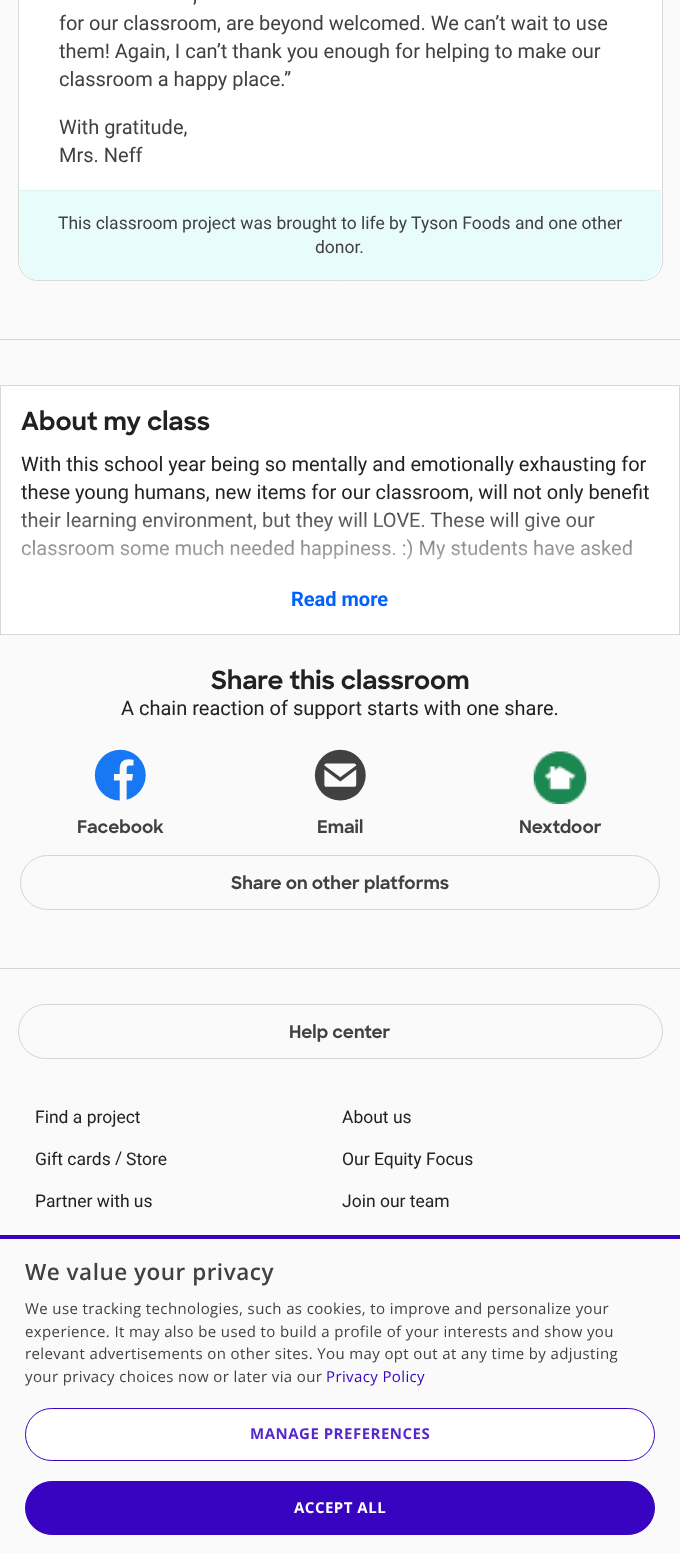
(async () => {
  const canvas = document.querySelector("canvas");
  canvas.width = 680;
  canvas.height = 1553;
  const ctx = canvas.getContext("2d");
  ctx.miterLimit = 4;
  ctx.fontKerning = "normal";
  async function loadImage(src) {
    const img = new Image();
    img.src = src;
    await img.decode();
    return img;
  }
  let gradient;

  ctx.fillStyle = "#fafafa";
  ctx.fillRect(0, 0, 680, 1553);
  ctx.fillStyle = "#d5d5d5";
  ctx.fillRect(0, 339, 680, 1);
  ctx.fillStyle = "#ffffff";
  ctx.beginPath();
  ctx.roundRect(18.5, -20.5, 644, 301, 19.5);
  ctx.fill();
  ctx.strokeStyle = "#d9d9d9";
  ctx.stroke();
  ctx.save();
  ctx.beginPath();
  ctx.roundRect(19, -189, 642, 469, 19);
  ctx.clip();
  ctx.fillStyle = "#e9fcfc";
  ctx.beginPath();
  ctx.roundRect(19, 190, 642, 90, [0, 0, 20, 20]);
  ctx.fill();
  ctx.restore();
  ctx.fillStyle = "#e1f3f3";
  ctx.fillRect(19, 190, 642, 1);
  ctx.fillStyle = "#ffffff";
  ctx.fillRect(1, 386, 678, 212);
  ctx.strokeRect(0.5, 385.5, 679, 249);
  ctx.drawImage(await loadImage("img/1.png"), 94, 749, 52, 52);
  ctx.drawImage(await loadImage("img/2.png"), 314, 749, 52, 52);
  ctx.drawImage(await loadImage("img/3.png"), 533, 751, 54, 53);
  ctx.beginPath();
  ctx.roundRect(20.5, 855.5, 639, 54, 27);
  ctx.strokeStyle = "#d5d5d5";
  ctx.stroke();
  ctx.fillStyle = "#d5d5d5";
  ctx.fillRect(0, 968, 680, 1);
  ctx.beginPath();
  ctx.roundRect(18.5, 1004.5, 644, 54, 27);
  ctx.stroke();
  ctx.fillStyle = "#3804c1";
  ctx.fillRect(0, 1235, 680, 4);
  ctx.fillStyle = "#ffffff";
  ctx.beginPath();
  ctx.roundRect(25.5, 1408.5, 629, 52, 26);
  ctx.fill();
  ctx.strokeStyle = "#3804c1";
  ctx.stroke();
  ctx.fillStyle = "#3804c1";
  ctx.beginPath();
  ctx.roundRect(25.5, 1481.5, 629, 53, 26.5);
  ctx.fill();
  ctx.stroke();
  ctx.font = "20px Roboto";
  ctx.fillStyle = "#414142";
  for (const [text, x, y] of [
    [",", 193, 2],
    ["for our classroom, are beyond welcomed. We can’t wait to use", 59, 30],
    ["them! Again, I can’t thank you enough for helping to make our", 59, 58],
    ["classroom a happy place.”", 59, 86],
    ["With gratitude,", 59, 134],
    ["Mrs. Neff", 59, 162],
  ]) {
    ctx.fillText(text, x, y);
  }
  ctx.font = "17.5px Roboto";
  ctx.fillText("This classroom project was brought to life by Tyson Foods and one other", 58, 229);
  ctx.fillText("donor.", 315, 253);
  ctx.font = "bold 25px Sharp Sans";
  ctx.fillStyle = "#212121";
  ctx.fillText("About my class", 21, 430);
  ctx.font = "20px Roboto";
  for (const [text, x, y] of [
    ["With this school year being so mentally and emotionally exhausting for", 21, 471],
    ["these young humans, new items for our classroom, will not only benefit", 21, 499],
    ["their learning environment, but they will LOVE. These will give our", 21, 527],
    ["classroom some much needed happiness. :) My students have asked", 21, 555],
  ]) {
    ctx.fillText(text, x, y);
  }
  gradient = ctx.createLinearGradient(340, 494, 340, 634);
  gradient.addColorStop(0, "rgba(255, 255, 255, 0)");
  gradient.addColorStop(0.75, "#ffffff");
  ctx.fillStyle = gradient;
  ctx.fillRect(1, 496, 678, 138);
  ctx.font = "bold 20px Roboto";
  ctx.fillStyle = "#0062fd";
  ctx.fillText("Read more", 291, 606);
  ctx.font = "bold 25px Sharp Sans";
  ctx.fillStyle = "#212121";
  ctx.fillText("Share this classroom", 211, 689);
  ctx.font = "20px Roboto";
  ctx.fillText("A chain reaction of support starts with one share.", 121, 715);
  ctx.font = "bold 17.5px Sharp Sans";
  ctx.fillStyle = "#414142";
  for (const [text, x, y] of [
    ["Facebook", 77, 833],
    ["Email", 317, 833],
    ["Nextdoor", 519, 833],
    ["Share on other platforms", 231, 889],
    ["Help center", 289, 1038],
  ]) {
    ctx.fillText(text, x, y);
  }
  ctx.font = "17.5px Roboto";
  ctx.fillStyle = "#212121";
  for (const [text, x, y] of [
    ["Find a project", 35, 1123],
    ["Gift cards", 35, 1165],
    ["/", 115, 1164],
    ["Store", 126, 1165],
    ["Partner with us", 35, 1207],
    ["About us", 342, 1123],
    ["Our Equity Focus", 342, 1165],
    ["Join our team", 342, 1207],
  ]) {
    ctx.fillText(text, x, y);
  }
  ctx.letterSpacing = "0.5px";
  ctx.font = "600 22.5px Open Sans";
  ctx.fillStyle = "#414142";
  ctx.fillText("We value your privacy", 25, 1280);
  ctx.letterSpacing = "0.38px";
  ctx.font = "15px Open Sans";
  for (const [text, x, y] of [
    ["We use tracking technologies, such as cookies, to improve and personalize your", 25, 1314],
    ["experience. It may also be used to build a profile of your interests and show you", 25, 1337],
    ["relevant advertisements on other sites. You may opt out at any time by adjusting", 25, 1359],
    ["your privacy choices now or later via our", 25, 1382],
  ]) {
    ctx.fillText(text, x, y);
  }
  ctx.fillStyle = "#3804c1";
  ctx.fillText("Privacy Policy", 326, 1382);
  ctx.letterSpacing = "0.5px";
  ctx.font = "bold 15px Open Sans";
  ctx.fillStyle = "#562aca";
  ctx.fillText("MANAGE PREFERENCES", 250, 1439);
  ctx.fillStyle = "#ffffff";
  ctx.fillText("ACCEPT ALL", 294, 1513);
})();
